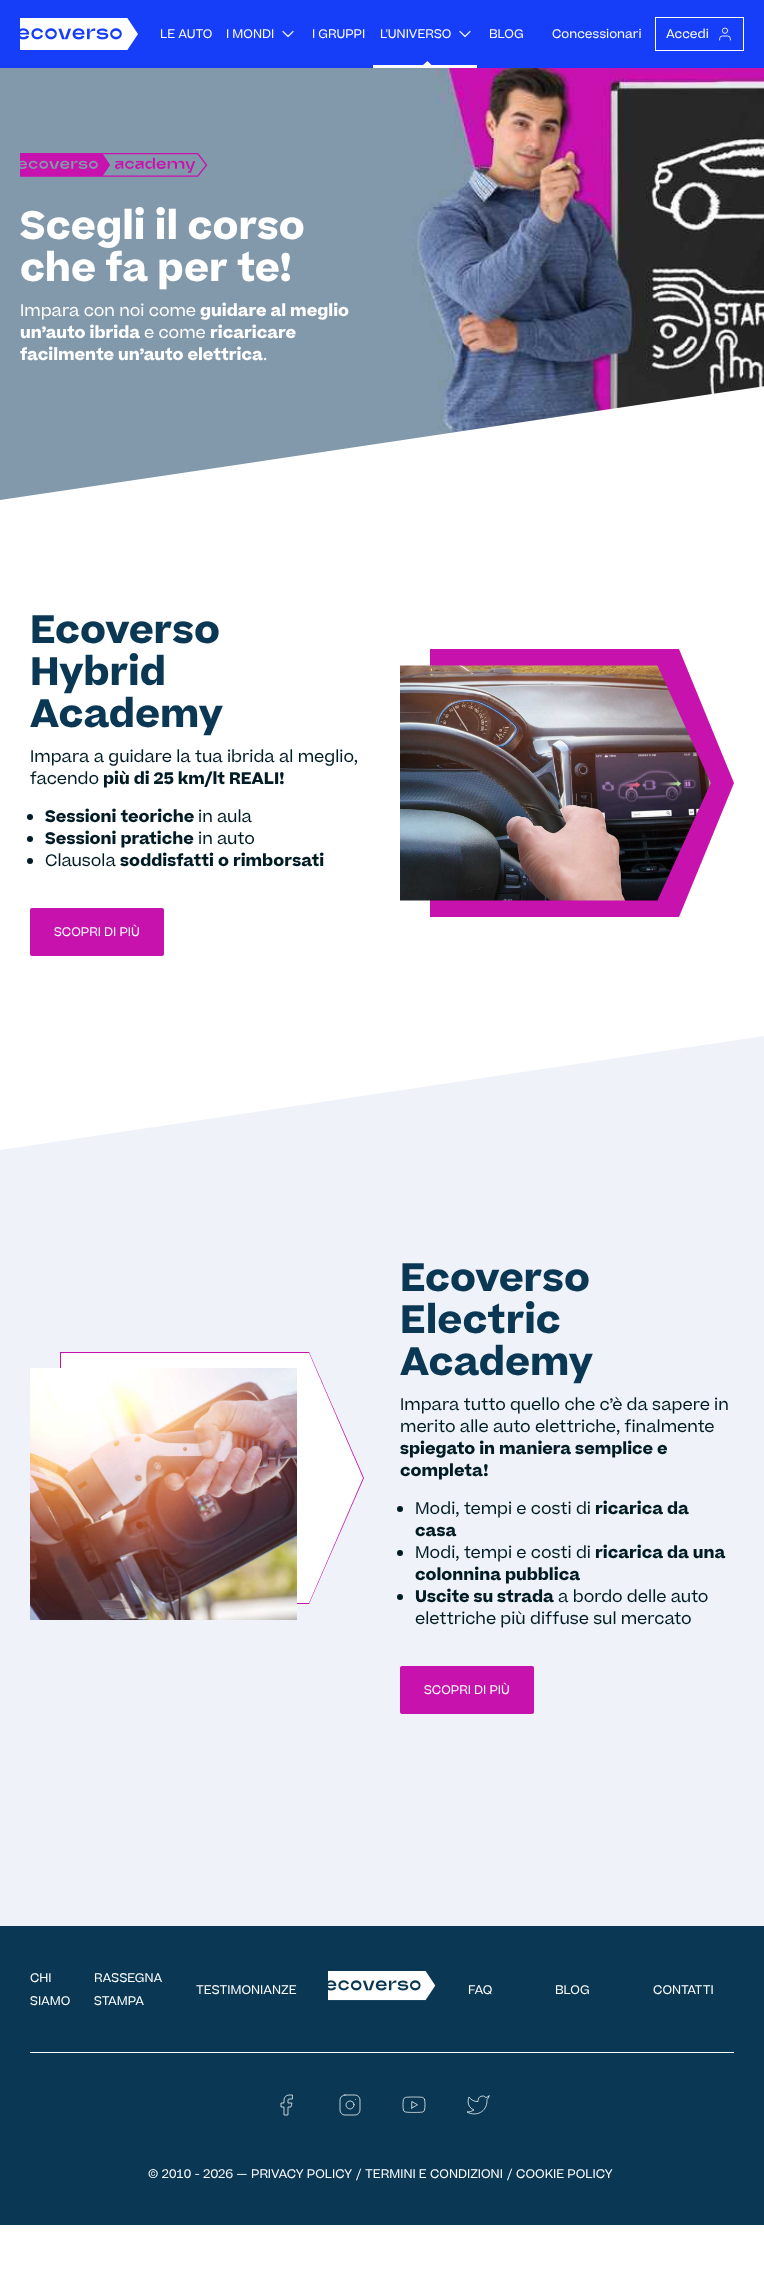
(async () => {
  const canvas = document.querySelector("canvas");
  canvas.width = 764;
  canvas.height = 2275;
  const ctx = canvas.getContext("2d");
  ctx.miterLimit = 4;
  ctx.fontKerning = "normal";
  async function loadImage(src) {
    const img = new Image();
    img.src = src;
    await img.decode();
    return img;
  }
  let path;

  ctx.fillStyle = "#ffffff";
  ctx.fillRect(0, 0, 764, 2275);
  ctx.fillStyle = "#163df7";
  ctx.fillRect(0, 0, 764, 68);
  ctx.drawImage(await loadImage("img/1.png"), 20, 18, 118, 32);
  ctx.drawImage(await loadImage("img/2.png"), 282, 30, 12, 8);
  ctx.drawImage(await loadImage("img/2.png"), 459, 30, 12, 8);
  ctx.save();
  ctx.beginPath();
  ctx.rect(373, 0, 109, 68);
  ctx.clip();
  ctx.fillStyle = "#ffffff";
  path = new Path2D("M427.5 61L431.5 65L427.5 69L423 65Z");
  ctx.fill(path);
  ctx.restore();
  ctx.fillStyle = "#ffffff";
  ctx.fillRect(373, 65, 104, 3);
  ctx.strokeStyle = "#ffffff";
  ctx.strokeRect(655.5, 17.5, 88, 33);
  ctx.drawImage(await loadImage("img/3.png"), 719, 27, 12, 14);
  ctx.drawImage(await loadImage("img/4.png"), 0, 68, 764, 432);
  ctx.drawImage(await loadImage("img/5.png"), 20, 153, 188, 24);
  ctx.fillStyle = "#021c26";
  ctx.beginPath();
  ctx.arc(30, 817, 3, 0, Math.PI * 2);
  ctx.fill();
  ctx.beginPath();
  ctx.arc(30, 839, 3, 0, Math.PI * 2);
  ctx.fill();
  ctx.beginPath();
  ctx.arc(30, 861, 3, 0, Math.PI * 2);
  ctx.fill();
  ctx.fillStyle = "#c712ad";
  ctx.beginPath();
  ctx.roundRect(30, 908, 134, 48, 2);
  ctx.fill();
  path = new Path2D("M430 649V917H679L734 783L679 649Z");
  ctx.fill(path);
  ctx.drawImage(await loadImage("img/6.png"), 400, 665, 311, 236);
  ctx.fillStyle = "#eff3f9";
  path = new Path2D("M0 1150V1936H764V1036Z");
  ctx.fill(path);
  ctx.fillStyle = "#c712ad";
  path = new Path2D("M60 1352V1604H309L364 1478L309 1352Z");
  ctx.fill(path);
  ctx.fillStyle = "#ffffff";
  path = new Path2D("M61 1353V1603H309L363 1478L309 1353Z");
  ctx.fill(path);
  ctx.drawImage(await loadImage("img/7.png"), 30, 1368, 267, 252);
  ctx.fillStyle = "#021c26";
  ctx.beginPath();
  ctx.arc(400, 1509, 3, 0, Math.PI * 2);
  ctx.fill();
  ctx.beginPath();
  ctx.arc(400, 1553, 3, 0, Math.PI * 2);
  ctx.fill();
  ctx.beginPath();
  ctx.arc(400, 1597, 3, 0, Math.PI * 2);
  ctx.fill();
  ctx.fillStyle = "#c712ad";
  ctx.beginPath();
  ctx.roundRect(400, 1666, 134, 48, 2);
  ctx.fill();
  ctx.fillStyle = "#0a3854";
  ctx.fillRect(0, 1926, 764, 299);
  ctx.drawImage(await loadImage("img/8.png"), 328, 1971, 108, 30);
  ctx.fillStyle = "#ffffff";
  ctx.fillRect(30, 2052, 704, 1);
  ctx.drawImage(await loadImage("img/9.png"), 280, 2094, 13, 22);
  ctx.drawImage(await loadImage("img/10.png"), 339, 2094, 22, 22);
  ctx.drawImage(await loadImage("img/11.png"), 402, 2096, 24, 17);
  ctx.drawImage(await loadImage("img/12.png"), 467, 2095, 23, 20);
  ctx.font = "12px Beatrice";
  for (const [text, x, y] of [
    ["LE AUTO", 160, 38],
    ["I MONDI", 226, 38],
    ["I GRUPPI", 312, 38],
    ["L'UNIVERSO", 380, 38],
    ["BLOG", 489, 38],
    ["Concessionari", 552, 38],
    ["Accedi", 666, 38],
  ]) {
    ctx.fillText(text, x, y);
  }
  ctx.font = "bold 38px Beatrice";
  ctx.fillText("Scegli il corso", 20, 239);
  ctx.fillText("che fa per te!", 20, 281);
  ctx.font = "16px Beatrice";
  ctx.fillText("Impara con noi come", 20, 316);
  ctx.font = "bold 16px Beatrice";
  ctx.fillText("guidare al meglio", 200, 316);
  ctx.fillText("un’auto ibrida", 20, 338);
  ctx.font = "16px Beatrice";
  ctx.fillText("e come", 144, 338);
  ctx.font = "bold 16px Beatrice";
  ctx.fillText("ricaricare", 210, 338);
  ctx.fillText("facilmente un’auto elettrica", 20, 360);
  ctx.font = "16px Beatrice";
  ctx.fillText(".", 263, 360);
  ctx.font = "bold 38px Beatrice";
  ctx.fillStyle = "#0a3854";
  for (const [text, x, y] of [
    ["Ecoverso", 30, 643],
    ["Hybrid", 30, 685],
    ["Academy", 30, 727],
  ]) {
    ctx.fillText(text, x, y);
  }
  ctx.font = "16px Beatrice";
  ctx.fillStyle = "#021c26";
  ctx.fillText("Impara a guidare la tua ibrida al meglio,", 30, 762);
  ctx.fillText("facendo", 30, 784);
  ctx.font = "bold 16px Beatrice";
  ctx.fillText("più di 25 km/lt REALI!", 103, 784);
  ctx.fillText("Sessioni teoriche", 45, 822);
  ctx.font = "16px Beatrice";
  ctx.fillText("in aula", 198, 822);
  ctx.font = "bold 16px Beatrice";
  ctx.fillText("Sessioni pratiche", 45, 844);
  ctx.font = "16px Beatrice";
  ctx.fillText("in auto", 198, 844);
  ctx.fillText("Clausola", 45, 866);
  ctx.font = "bold 16px Beatrice";
  ctx.fillText("soddisfatti o rimborsati", 120, 866);
  ctx.font = "12px Beatrice";
  ctx.fillStyle = "#ffffff";
  ctx.fillText("SCOPRI DI PIÙ", 54, 936);
  ctx.font = "bold 38px Beatrice";
  ctx.fillStyle = "#0a3854";
  for (const [text, x, y] of [
    ["Ecoverso", 400, 1291],
    ["Electric", 400, 1333],
    ["Academy", 400, 1375],
  ]) {
    ctx.fillText(text, x, y);
  }
  ctx.font = "16px Beatrice";
  ctx.fillStyle = "#021c26";
  ctx.fillText("Impara tutto quello che c’è da sapere in", 400, 1410);
  ctx.fillText("merito alle auto elettriche, finalmente", 400, 1432);
  ctx.font = "bold 16px Beatrice";
  ctx.fillText("spiegato in maniera semplice e", 400, 1454);
  ctx.fillText("completa!", 400, 1476);
  ctx.font = "16px Beatrice";
  ctx.fillText("Modi, tempi e costi di", 415, 1514);
  ctx.font = "bold 16px Beatrice";
  ctx.fillText("ricarica da", 595, 1514);
  ctx.fillText("casa", 415, 1536);
  ctx.font = "16px Beatrice";
  ctx.fillText("Modi, tempi e costi di", 415, 1558);
  ctx.font = "bold 16px Beatrice";
  for (const [text, x, y] of [
    ["ricarica da una", 595, 1558],
    ["colonnina pubblica", 415, 1580],
    ["Uscite su strada", 415, 1602],
  ]) {
    ctx.fillText(text, x, y);
  }
  ctx.font = "16px Beatrice";
  ctx.fillText("a bordo delle auto", 558, 1602);
  ctx.fillText("elettriche più diffuse sul mercato", 415, 1624);
  ctx.font = "12px Beatrice";
  ctx.fillStyle = "#ffffff";
  for (const [text, x, y] of [
    ["SCOPRI DI PIÙ", 424, 1694],
    ["CHI", 30, 1982],
    ["SIAMO", 30, 2005],
    ["RASSEGNA", 94, 1982],
    ["STAMPA", 94, 2005],
    ["TESTIMONIANZE", 196, 1994],
    ["FAQ", 468, 1994],
    ["BLOG", 555, 1994],
    ["CONTATTI", 653, 1994],
  ]) {
    ctx.fillText(text, x, y);
  }
  ctx.font = "12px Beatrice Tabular";
  ctx.fillText("© 2010 -", 148, 2178);
  ctx.font = "12px Beatrice";
  for (const [text, x, y] of [
    ["2026 —", 203, 2178],
    ["PRIVACY POLICY", 251, 2178],
    ["/", 356, 2178],
    ["TERMINI E CONDIZIONI", 365, 2178],
    ["/", 507, 2178],
    ["COOKIE POLICY", 516, 2178],
  ]) {
    ctx.fillText(text, x, y);
  }
})();
